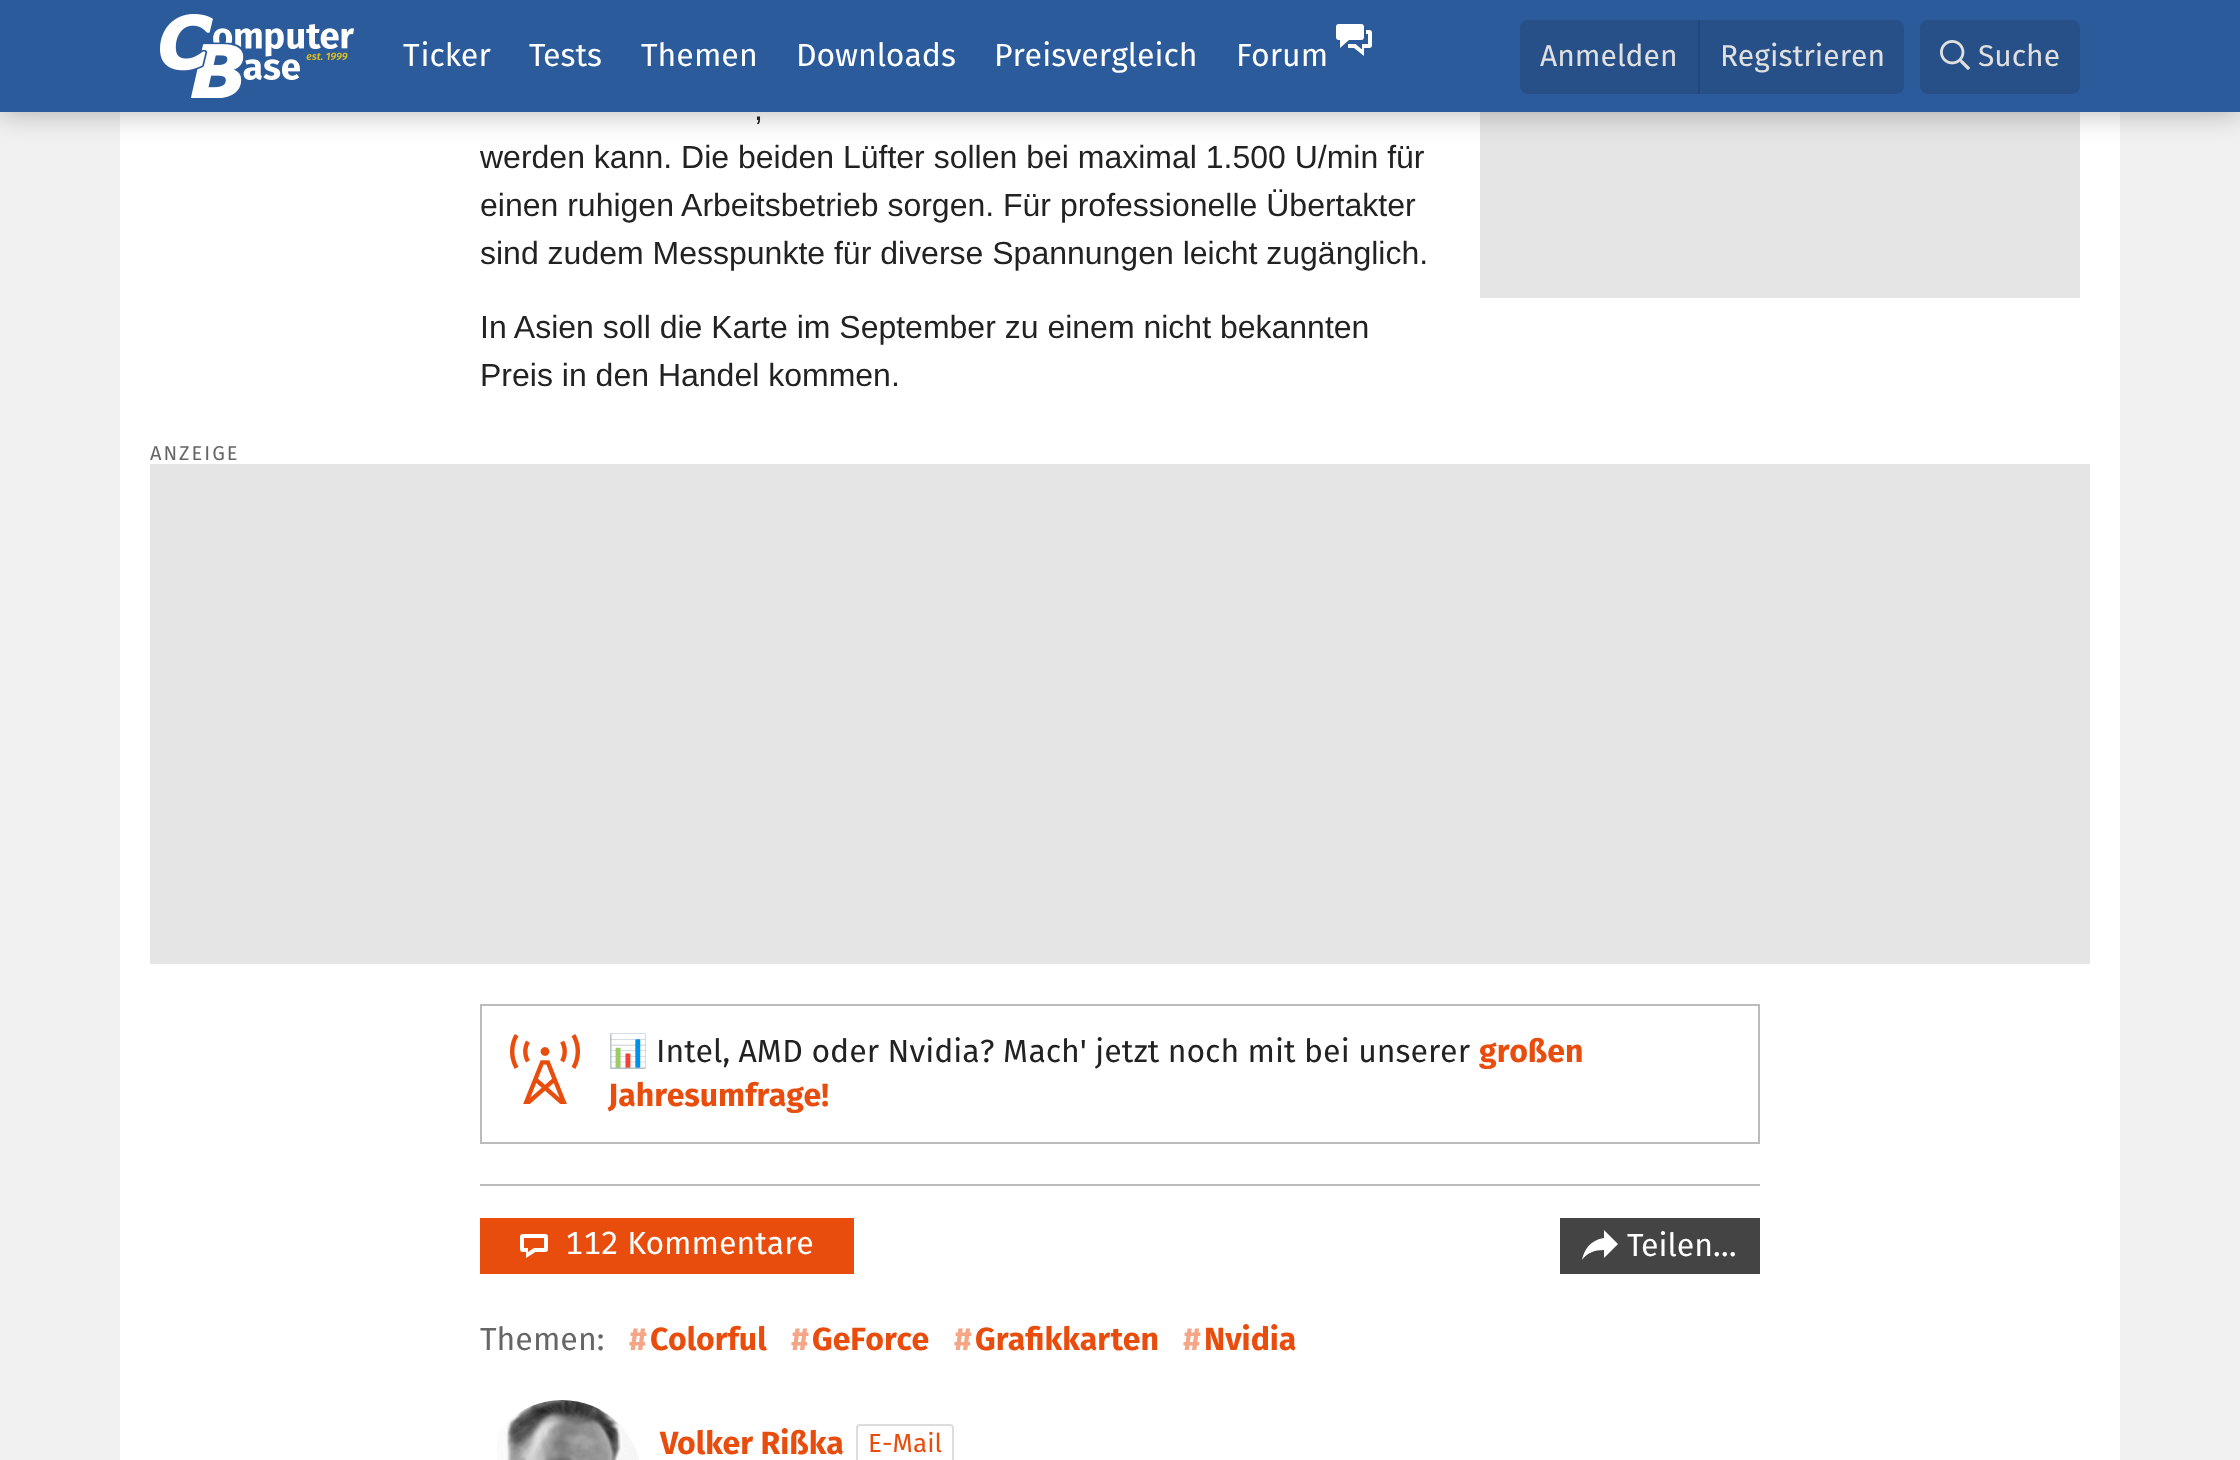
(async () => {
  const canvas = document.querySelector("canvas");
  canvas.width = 2240;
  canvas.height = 1460;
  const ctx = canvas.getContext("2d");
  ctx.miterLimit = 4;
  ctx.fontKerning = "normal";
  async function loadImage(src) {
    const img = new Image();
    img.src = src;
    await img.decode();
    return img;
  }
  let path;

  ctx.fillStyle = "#f1f1f1";
  ctx.fillRect(0, 0, 2240, 1460);
  ctx.fillStyle = "#ffffff";
  ctx.fillRect(120, 112, 2000, 1348);
  ctx.fillStyle = "#e5e5e5";
  ctx.fillRect(1480, 112, 600, 186);
  ctx.fillStyle = "rgba(0, 0, 0, 0.3)";
  ctx.filter = "blur(15px)";
  ctx.beginPath();
  ctx.rect(0, 0, 2240, 112);
  ctx.fill();
  ctx.filter = "none";
  ctx.fillStyle = "#2c5b9c";
  ctx.fillRect(0, 0, 2240, 112);
  ctx.drawImage(await loadImage("img/1.png"), 160, 14, 194, 84);
  ctx.drawImage(await loadImage("img/2.png"), 1336, 24, 36, 32);
  ctx.fillStyle = "#285088";
  ctx.beginPath();
  ctx.roundRect(1520, 20, 384, 74, 8);
  ctx.fill();
  ctx.fillStyle = "#254777";
  ctx.fillRect(1698, 20, 2, 74);
  ctx.fillStyle = "#285088";
  ctx.beginPath();
  ctx.roundRect(1920, 20, 160, 74, 8);
  ctx.fill();
  ctx.drawImage(await loadImage("img/3.png"), 1940, 40, 30, 30);
  ctx.fillStyle = "#e5e5e5";
  ctx.fillRect(150, 464, 1940, 500);
  ctx.strokeStyle = "#bbbbbb";
  ctx.lineWidth = 2;
  ctx.strokeRect(481, 1005, 1278, 138);
  ctx.drawImage(await loadImage("img/4.png"), 510, 1034, 70, 70);
  ctx.fillStyle = "#bbbbbb";
  ctx.fillRect(480, 1184, 1280, 2);
  ctx.fillStyle = "#e84d0e";
  ctx.fillRect(480, 1218, 374, 56);
  ctx.drawImage(await loadImage("img/5.png"), 520, 1234, 28, 24);
  ctx.fillStyle = "#444444";
  ctx.fillRect(1560, 1218, 200, 56);
  ctx.fillStyle = "#ffffff";
  path = new Path2D("M1618 1244L1604 1230V1238C1590 1240 1584 1250 1582 1260C1587 1253 1594 1250 1604 1250V1258Z");
  ctx.fill(path);
  ctx.drawImage(await loadImage("img/6.png"), 497, 1400, 142, 60);
  ctx.beginPath();
  ctx.roundRect(857, 1425, 96, 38, 3);
  ctx.strokeStyle = "#dddddd";
  ctx.stroke();
  ctx.font = "32px Fira Sans";
  for (const [text, x, y] of [
    ["Ticker", 403, 66],
    ["Tests", 529, 66],
    ["Themen", 641, 66],
    ["Downloads", 796, 66],
    ["Preisvergleich", 994, 66],
    ["Forum", 1236, 66],
  ]) {
    ctx.fillText(text, x, y);
  }
  ctx.font = "30px Fira Sans";
  ctx.fillStyle = "#e0e0e0";
  for (const [text, x, y] of [
    ["Anmelden", 1540, 66],
    ["Registrieren", 1720, 66],
    ["Suche", 1978, 66],
  ]) {
    ctx.fillText(text, x, y);
  }
  ctx.font = "32px Liberation Sans";
  ctx.fillStyle = "#222222";
  for (const [text, x, y] of [
    [",", 754, 120],
    ["werden kann. Die beiden Lüfter sollen bei maximal 1.500 U/min für", 480, 168],
    ["einen ruhigen Arbeitsbetrieb sorgen. Für professionelle Übertakter", 480, 216],
    ["sind zudem Messpunkte für diverse Spannungen leicht zugänglich.", 480, 264],
    ["In Asien soll die Karte im September zu einem nicht bekannten", 480, 338],
    ["Preis in den Handel kommen.", 480, 386],
  ]) {
    ctx.fillText(text, x, y);
  }
  ctx.letterSpacing = "2px";
  ctx.font = "20px Fira Sans";
  ctx.fillStyle = "#666666";
  ctx.fillText("ANZEIGE", 150, 460);
  ctx.letterSpacing = "0px";
  ctx.font = "32px Noto Color Emoji";
  ctx.fillStyle = "#222222";
  ctx.fillText("📊", 608, 1062);
  ctx.font = "32px Fira Sans";
  ctx.fillText("Intel, AMD oder Nvidia? Mach' jetzt noch mit bei unserer", 656, 1062);
  ctx.font = "bold 32px Fira Sans";
  ctx.fillStyle = "#e84d0e";
  ctx.fillText("großen", 1479, 1062);
  ctx.fillText("Jahresumfrage!", 608, 1106);
  ctx.font = "32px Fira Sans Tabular";
  ctx.fillStyle = "#ffffff";
  ctx.fillText("112 Kommentare", 565, 1254);
  ctx.font = "32px Fira Sans";
  ctx.fillText("Teilen…", 1627, 1256);
  ctx.fillStyle = "#666666";
  ctx.fillText("Themen:", 480, 1350);
  ctx.font = "bold 32px Fira Sans";
  ctx.fillStyle = "#f4a687";
  ctx.fillText("#", 629, 1350);
  ctx.fillStyle = "#e84d0e";
  ctx.fillText("Colorful", 650, 1350);
  ctx.fillStyle = "#f4a687";
  ctx.fillText("#", 791, 1350);
  ctx.fillStyle = "#e84d0e";
  ctx.fillText("GeForce", 812, 1350);
  ctx.fillStyle = "#f4a687";
  ctx.fillText("#", 954, 1350);
  ctx.fillStyle = "#e84d0e";
  ctx.fillText("Grafikkarten", 975, 1350);
  ctx.fillStyle = "#f4a687";
  ctx.fillText("#", 1183, 1350);
  ctx.fillStyle = "#e84d0e";
  ctx.fillText("Nvidia", 1204, 1350);
  ctx.fillText("Volker Rißka", 660, 1454);
  ctx.font = "26px Fira Sans";
  ctx.fillText("E-Mail", 868, 1452);
})();
